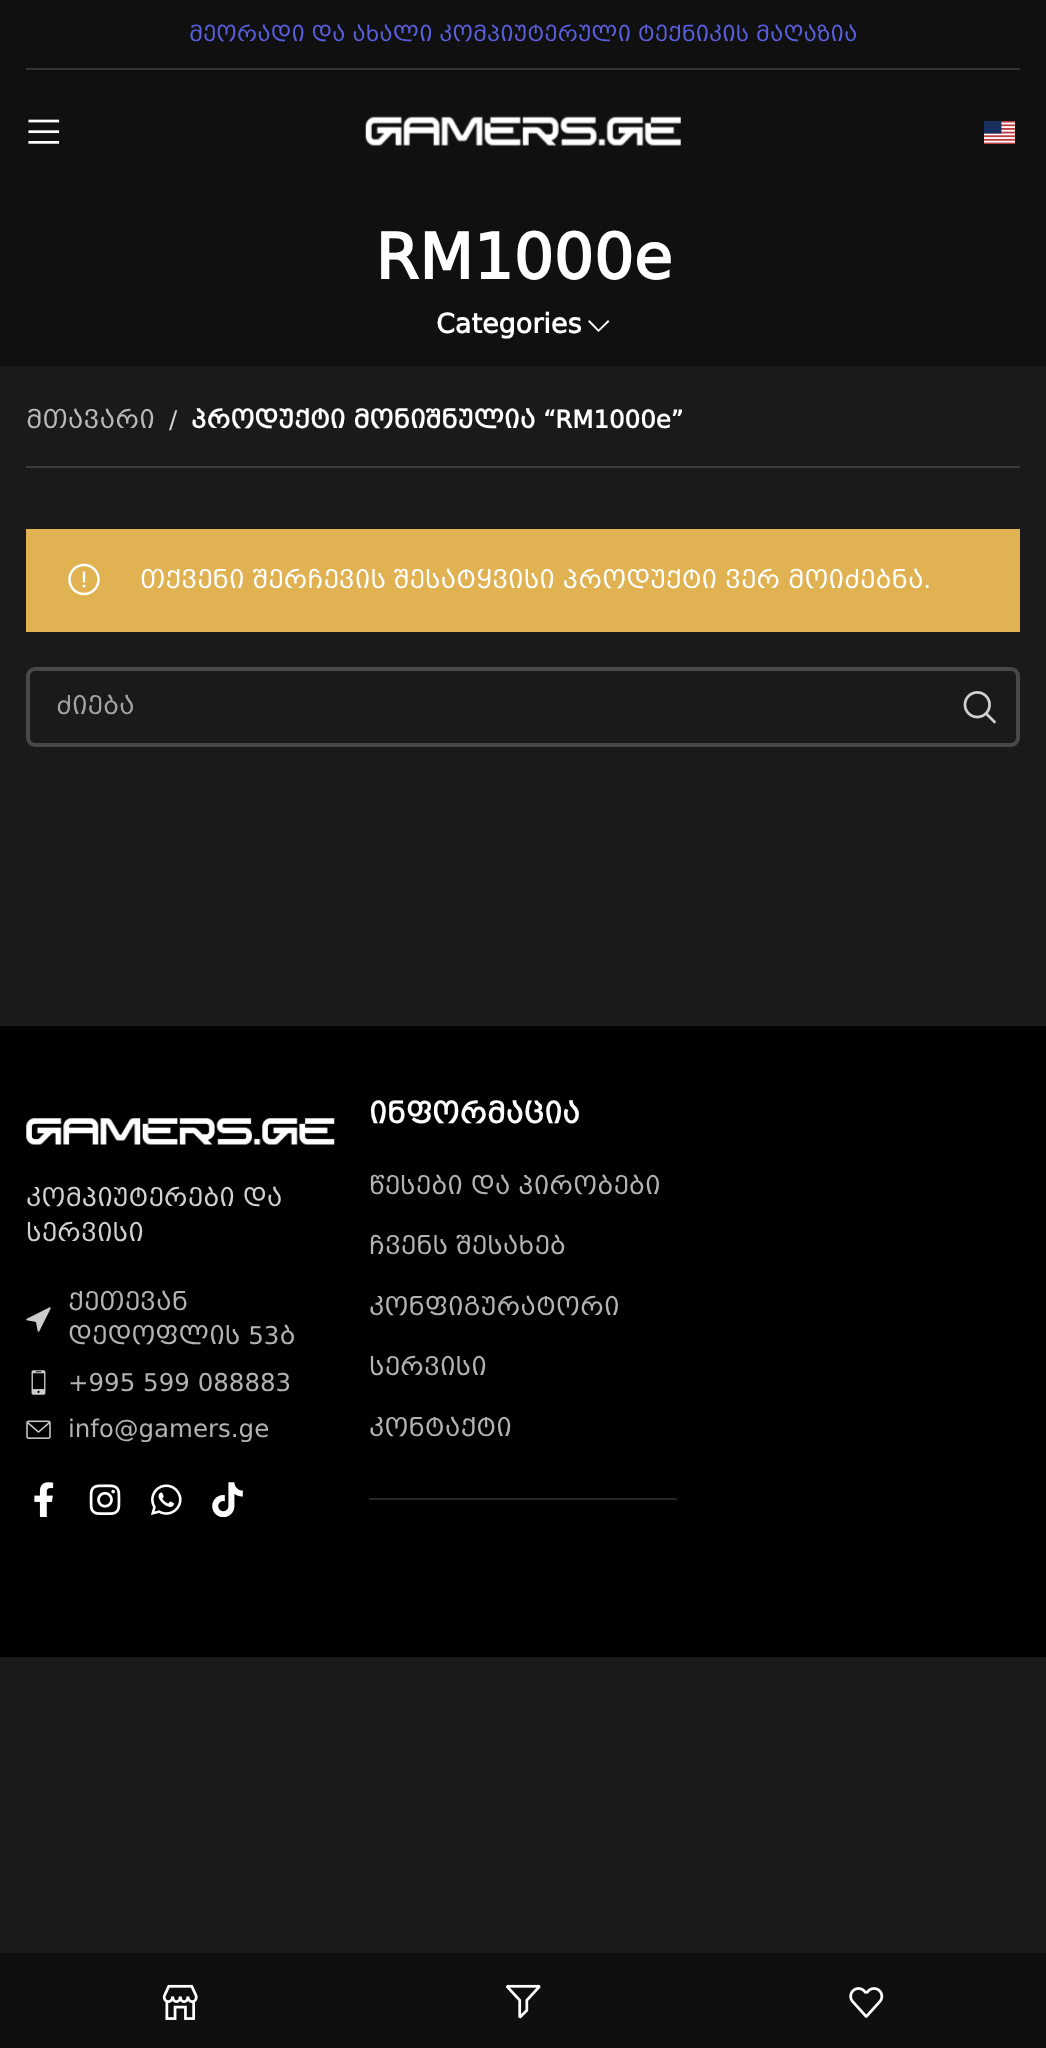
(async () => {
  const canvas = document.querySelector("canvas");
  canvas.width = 1046;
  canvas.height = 2048;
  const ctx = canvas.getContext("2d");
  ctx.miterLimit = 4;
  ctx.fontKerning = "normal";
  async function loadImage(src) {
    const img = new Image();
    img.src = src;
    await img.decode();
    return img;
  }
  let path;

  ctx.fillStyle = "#1a1a1a";
  ctx.fillRect(0, 0, 1046, 2048);
  ctx.fillStyle = "#101010";
  ctx.fillRect(0, 0, 1046, 366);
  ctx.fillStyle = "#343434";
  ctx.fillRect(26, 68, 994, 2);
  ctx.drawImage(await loadImage("img/1.png"), 28, 119, 32, 25);
  ctx.drawImage(await loadImage("img/2.png"), 365, 116, 316, 30);
  ctx.drawImage(await loadImage("img/3.png"), 984, 121, 31, 23);
  ctx.fillStyle = "#ffffff";
  path = new Path2D("M608 320L598.5 329.5L589.5 320L588 321.5L598.5 332L609.5 321.5Z");
  ctx.fill(path);
  ctx.fillStyle = "#3c3c3c";
  ctx.fillRect(26, 466, 994, 2);
  ctx.fillStyle = "#e0b252";
  ctx.fillRect(26, 529, 994, 103);
  ctx.drawImage(await loadImage("img/4.png"), 68, 563, 32, 33);
  ctx.beginPath();
  ctx.roundRect(28, 669, 990, 76, 7);
  ctx.strokeStyle = "#484848";
  ctx.lineWidth = 4;
  ctx.stroke();
  ctx.drawImage(await loadImage("img/5.png"), 963, 691, 34, 33);
  ctx.fillStyle = "#000000";
  ctx.fillRect(0, 1026, 1046, 631);
  ctx.drawImage(await loadImage("img/6.png"), 26, 1118, 309, 27);
  ctx.drawImage(await loadImage("img/7.png"), 26, 1307, 25, 25);
  ctx.drawImage(await loadImage("img/8.png"), 31, 1370, 15, 25);
  ctx.drawImage(await loadImage("img/9.png"), 26, 1420, 25, 19);
  ctx.drawImage(await loadImage("img/10.png"), 34, 1482, 20, 35);
  ctx.drawImage(await loadImage("img/11.png"), 89, 1484, 32, 32);
  ctx.drawImage(await loadImage("img/12.png"), 151, 1484, 31, 31);
  ctx.drawImage(await loadImage("img/13.png"), 212, 1482, 31, 35);
  ctx.fillStyle = "#262626";
  ctx.fillRect(369, 1498, 308, 2);
  ctx.fillStyle = "#0f0f0f";
  ctx.fillRect(0, 1953, 1046, 95);
  ctx.drawImage(await loadImage("img/14.png"), 162, 1984, 36, 36);
  ctx.drawImage(await loadImage("img/15.png"), 505, 1984, 36, 35);
  ctx.drawImage(await loadImage("img/16.png"), 849, 1987, 35, 31);
  ctx.font = "21px 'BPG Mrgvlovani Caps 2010'";
  ctx.fillStyle = "#5a5fde";
  ctx.fillText("მეორადი და ახალი კომპიუტერული ტექნიკის მაღაზია", 189, 41);
  ctx.font = "bold 63px 'BPG Mrgvlovani Caps 2010'";
  ctx.fillStyle = "#ffffff";
  ctx.fillText("RM1000e", 375, 279);
  ctx.font = "bold 27px 'BPG Mrgvlovani Caps 2010'";
  ctx.fillText("Categories", 436, 333);
  ctx.font = "24.5px 'BPG Mrgvlovani Caps 2010'";
  ctx.fillStyle = "#bababa";
  ctx.fillText("მთავარი", 26, 428);
  ctx.fillStyle = "#d1d1d1";
  ctx.fillText("/", 169, 428);
  ctx.font = "bold 24.5px 'BPG Mrgvlovani Caps 2010'";
  ctx.fillStyle = "#ffffff";
  ctx.fillText("პროდუქტი მონიშნულია “RM1000e”", 191, 428);
  ctx.font = "24.5px 'BPG Mrgvlovani Caps 2010'";
  ctx.fillText("თქვენი შერჩევის შესატყვისი პროდუქტი ვერ მოიძებნა.", 140, 588);
  ctx.fillStyle = "#a3a3a3";
  ctx.fillText("ძიება", 56, 714);
  ctx.fillStyle = "#d1d1d1";
  ctx.fillText("კომპიუტერები და", 26, 1206);
  ctx.fillText("სერვისი", 26, 1241);
  ctx.fillStyle = "#b3b3b3";
  for (const [text, x, y] of [
    ["ქეთევან", 68, 1310],
    ["დედოფლის 53ბ", 68, 1344],
    ["+995 599 088883", 68, 1391],
    ["info@gamers.ge", 68, 1437],
  ]) {
    ctx.fillText(text, x, y);
  }
  ctx.font = "bold 28px 'BPG Mrgvlovani Caps 2010'";
  ctx.fillStyle = "#ffffff";
  ctx.fillText("ინფორმაცია", 369, 1123);
  ctx.font = "24.5px 'BPG Mrgvlovani Caps 2010'";
  ctx.fillStyle = "#b3b3b3";
  for (const [text, x, y] of [
    ["წესები და პირობები", 369, 1194],
    ["ჩვენს შესახებ", 369, 1254],
    ["კონფიგურატორი", 369, 1315],
    ["სერვისი", 369, 1375],
    ["კონტაქტი", 369, 1436],
  ]) {
    ctx.fillText(text, x, y);
  }
})();
